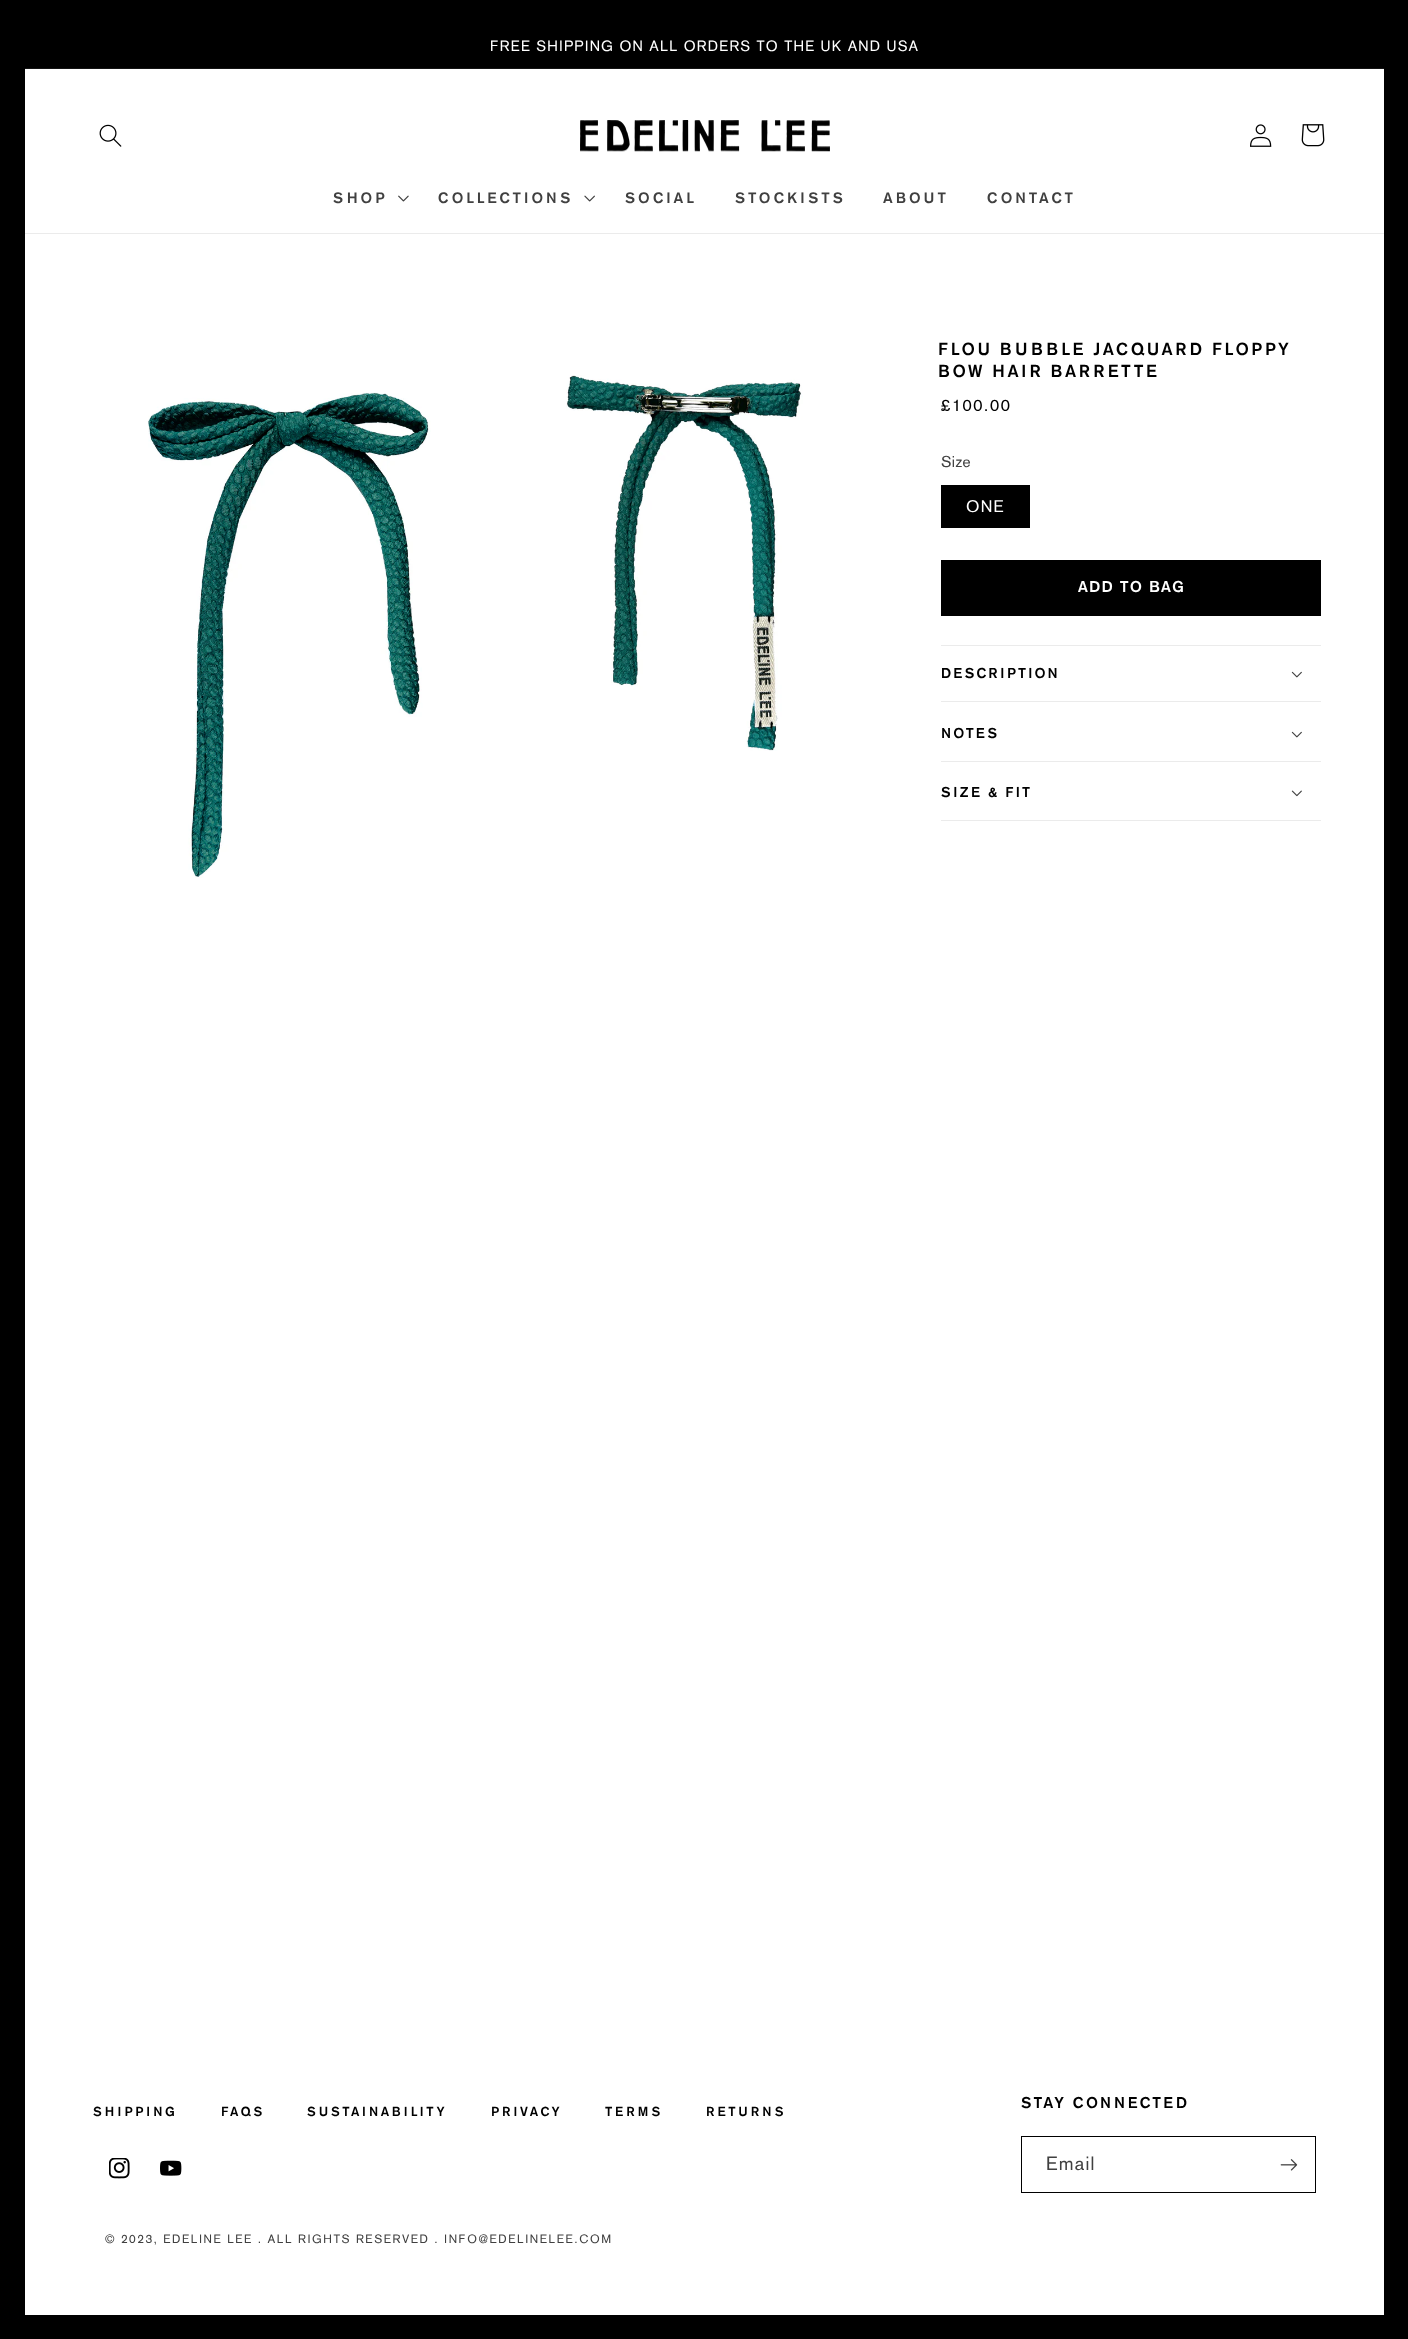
(async () => {
  const canvas = document.querySelector("canvas");
  canvas.width = 1408;
  canvas.height = 2339;
  const ctx = canvas.getContext("2d");
  ctx.miterLimit = 4;
  ctx.fontKerning = "normal";
  async function loadImage(src) {
    const img = new Image();
    img.src = src;
    await img.decode();
    return img;
  }

  ctx.fillStyle = "#ffffff";
  ctx.fillRect(0, 0, 1408, 2339);
  ctx.strokeStyle = "#000000";
  ctx.lineWidth = 25;
  ctx.strokeRect(12.5, 12.5, 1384, 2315);
  for (const [x, y, w, h, color] of [
    [25, 25, 1359, 43, "#000000"],
    [25, 68, 1359, 1, "#141414"],
    [25, 233, 1359, 1, "#ebebeb"],
  ]) {
    ctx.fillStyle = color;
    ctx.fillRect(x, y, w, h);
  }
  ctx.drawImage(await loadImage("img/1.png"), 99, 124, 23, 23);
  ctx.drawImage(await loadImage("img/2.png"), 580, 120, 250, 32);
  ctx.drawImage(await loadImage("img/3.png"), 1250, 124, 22, 23);
  ctx.drawImage(await loadImage("img/4.png"), 1301, 124, 24, 23);
  ctx.drawImage(await loadImage("img/5.png"), 398, 195, 11, 7);
  ctx.drawImage(await loadImage("img/6.png"), 584, 195, 11, 7);
  ctx.drawImage(await loadImage("img/7.png"), 148, 392, 283, 486);
  ctx.drawImage(await loadImage("img/8.png"), 566, 375, 237, 376);
  for (const [x, y, w, h, color] of [
    [941, 485, 89, 43, "#000000"],
    [941, 560, 380, 56, "#000000"],
    [941, 645, 380, 1, "#ebebeb"],
    [941, 701, 380, 1, "#ebebeb"],
  ]) {
    ctx.fillStyle = color;
    ctx.fillRect(x, y, w, h);
  }
  ctx.drawImage(await loadImage("img/9.png"), 1291, 671, 11, 7);
  ctx.fillRect(941, 761, 380, 1);
  ctx.drawImage(await loadImage("img/9.png"), 1291, 731, 11, 7);
  ctx.fillRect(941, 820, 380, 1);
  ctx.drawImage(await loadImage("img/10.png"), 1291, 790, 11, 7);
  ctx.lineWidth = 1;
  ctx.strokeRect(1021.5, 2136.5, 294, 56);
  ctx.drawImage(await loadImage("img/11.png"), 1280, 2159, 18, 12);
  ctx.drawImage(await loadImage("img/12.png"), 109, 2158, 21, 21);
  ctx.drawImage(await loadImage("img/13.png"), 160, 2160, 22, 16);
  ctx.letterSpacing = "1.2px";
  ctx.font = "14.6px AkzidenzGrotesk";
  ctx.fillStyle = "#ffffff";
  ctx.fillText("FREE SHIPPING ON ALL ORDERS TO THE UK AND USA", 490, 51);
  ctx.letterSpacing = "3px";
  ctx.font = "500 15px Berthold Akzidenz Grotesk";
  ctx.fillStyle = "#404040";
  for (const [text, x, y] of [
    ["SHOP", 333, 203],
    ["COLLECTIONS", 438, 203],
    ["SOCIAL", 625, 203],
    ["STOCKISTS", 735, 203],
    ["ABOUT", 883, 203],
    ["CONTACT", 987, 203],
  ]) {
    ctx.fillText(text, x, y);
  }
  ctx.letterSpacing = "2.6px";
  ctx.font = "500 17.25px Berthold Akzidenz Grotesk";
  ctx.fillStyle = "#000000";
  ctx.fillText("FLOU BUBBLE JACQUARD FLOPPY", 938, 355);
  ctx.fillText("BOW HAIR BARRETTE", 938, 377);
  ctx.letterSpacing = "1.55px";
  ctx.font = "16.5px AkzidenzGrotesk";
  ctx.fillText("£100.00", 941, 411);
  ctx.letterSpacing = "0.5px";
  ctx.font = "15.5px AkzidenzGrotesk";
  ctx.fillStyle = "#404040";
  ctx.fillText("Size", 941, 467);
  ctx.letterSpacing = "1.2px";
  ctx.font = "16.5px AkzidenzGrotesk";
  ctx.fillStyle = "#ffffff";
  ctx.fillText("ONE", 966, 512);
  ctx.letterSpacing = "1.55px";
  ctx.font = "bold 15.5px AkzidenzGrotesk";
  ctx.fillText("ADD TO BAG", 1078, 592);
  ctx.letterSpacing = "2.1px";
  ctx.font = "500 14.25px Berthold Akzidenz Grotesk";
  ctx.fillStyle = "#000000";
  for (const [text, x, y] of [
    ["DESCRIPTION", 941, 678],
    ["NOTES", 941, 738],
    ["SIZE & FIT", 941, 797],
  ]) {
    ctx.fillText(text, x, y);
  }
  ctx.letterSpacing = "2.6px";
  ctx.font = "500 13px Berthold Akzidenz Grotesk";
  for (const [text, x, y] of [
    ["SHIPPING", 93, 2116],
    ["FAQS", 221, 2116],
    ["SUSTAINABILITY", 307, 2116],
    ["PRIVACY", 491, 2116],
    ["TERMS", 605, 2116],
    ["RETURNS", 706, 2116],
  ]) {
    ctx.fillText(text, x, y);
  }
  ctx.letterSpacing = "2.25px";
  ctx.font = "500 15.5px Berthold Akzidenz Grotesk";
  ctx.fillText("STAY CONNECTED", 1021, 2108);
  ctx.letterSpacing = "1.2px";
  ctx.font = "19px AkzidenzGrotesk";
  ctx.fillStyle = "#404040";
  ctx.fillText("Email", 1046, 2170);
  ctx.letterSpacing = "1.55px";
  ctx.font = "11.9px AkzidenzGrotesk";
  ctx.fillText("© 2023, EDELINE LEE . ALL RIGHTS RESERVED . INFO@EDELINELEE.COM", 105, 2243);
})();
